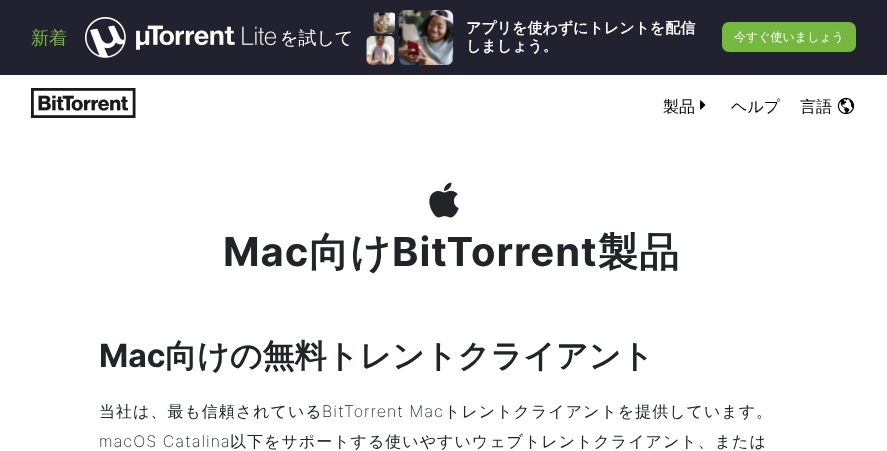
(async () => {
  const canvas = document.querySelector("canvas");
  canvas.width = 887;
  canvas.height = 451;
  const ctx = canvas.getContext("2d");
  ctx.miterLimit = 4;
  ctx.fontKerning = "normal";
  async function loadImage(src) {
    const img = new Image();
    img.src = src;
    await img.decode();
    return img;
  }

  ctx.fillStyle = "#ffffff";
  ctx.fillRect(0, 0, 887, 451);
  ctx.fillStyle = "#212130";
  ctx.fillRect(0, 0, 887, 75);
  ctx.drawImage(await loadImage("img/1.png"), 85, 17, 191, 41);
  ctx.drawImage(await loadImage("img/2.png"), 366, 10, 88, 55);
  ctx.fillStyle = "#76b83f";
  ctx.beginPath();
  ctx.roundRect(722, 22, 134, 30, 7);
  ctx.fill();
  ctx.drawImage(await loadImage("img/3.png"), 31, 88, 105, 30);
  ctx.drawImage(await loadImage("img/4.png"), 700, 100, 6, 10);
  ctx.drawImage(await loadImage("img/5.png"), 837, 97, 18, 18);
  ctx.drawImage(await loadImage("img/6.png"), 429, 182, 30, 36);
  ctx.font = "500 18px WenQuanYi Zen Hei";
  ctx.fillText("新着", 31, 44);
  ctx.fillStyle = "#ffffff";
  ctx.fillText("を試して", 280, 44);
  ctx.font = "bold 15px WenQuanYi Zen Hei";
  ctx.fillText("アプリを使わずにトレントを配信", 466, 33);
  ctx.fillText("しましょう。", 466, 51);
  ctx.font = "500 12px WenQuanYi Zen Hei";
  ctx.fillText("今すぐ使いましょう", 734, 41);
  ctx.font = "500 16px WenQuanYi Zen Hei";
  ctx.fillStyle = "#000000";
  for (const [text, x, y] of [
    ["製品", 663, 112],
    ["ヘルプ", 731, 112],
    ["言語", 800, 112],
  ]) {
    ctx.fillText(text, x, y);
  }
  ctx.letterSpacing = "1px";
  ctx.font = "bold 40px Inter";
  ctx.fillStyle = "#212529";
  ctx.fillText("Mac", 223, 266);
  ctx.font = "bold 40px WenQuanYi Zen Hei";
  ctx.fillText("向け", 309, 266);
  ctx.font = "bold 40px Inter";
  ctx.fillText("BitTorrent", 392, 266);
  ctx.font = "bold 40px WenQuanYi Zen Hei";
  ctx.fillText("製品", 598, 266);
  ctx.letterSpacing = "0px";
  ctx.font = "bold 32px Inter";
  ctx.fillText("Mac", 99, 367);
  ctx.font = "bold 32px WenQuanYi Zen Hei";
  ctx.fillText("向けの無料トレントクライアント", 165, 367);
  ctx.letterSpacing = "1px";
  ctx.font = "500 16px WenQuanYi Zen Hei";
  ctx.fillText("当社は、最も信頼されている", 99, 417);
  ctx.font = "200 16px Inter";
  ctx.fillText("BitTorrent Mac", 322, 417);
  ctx.font = "500 16px WenQuanYi Zen Hei";
  ctx.fillText("トレントクライアントを提供しています。", 444, 417);
  ctx.font = "200 16px Inter";
  ctx.fillText("macOS Catalina", 99, 447);
  ctx.font = "500 16px WenQuanYi Zen Hei";
  ctx.fillText("以下をサポートする使いやすいウェブトレントクライアント、または", 230, 447);
})();
